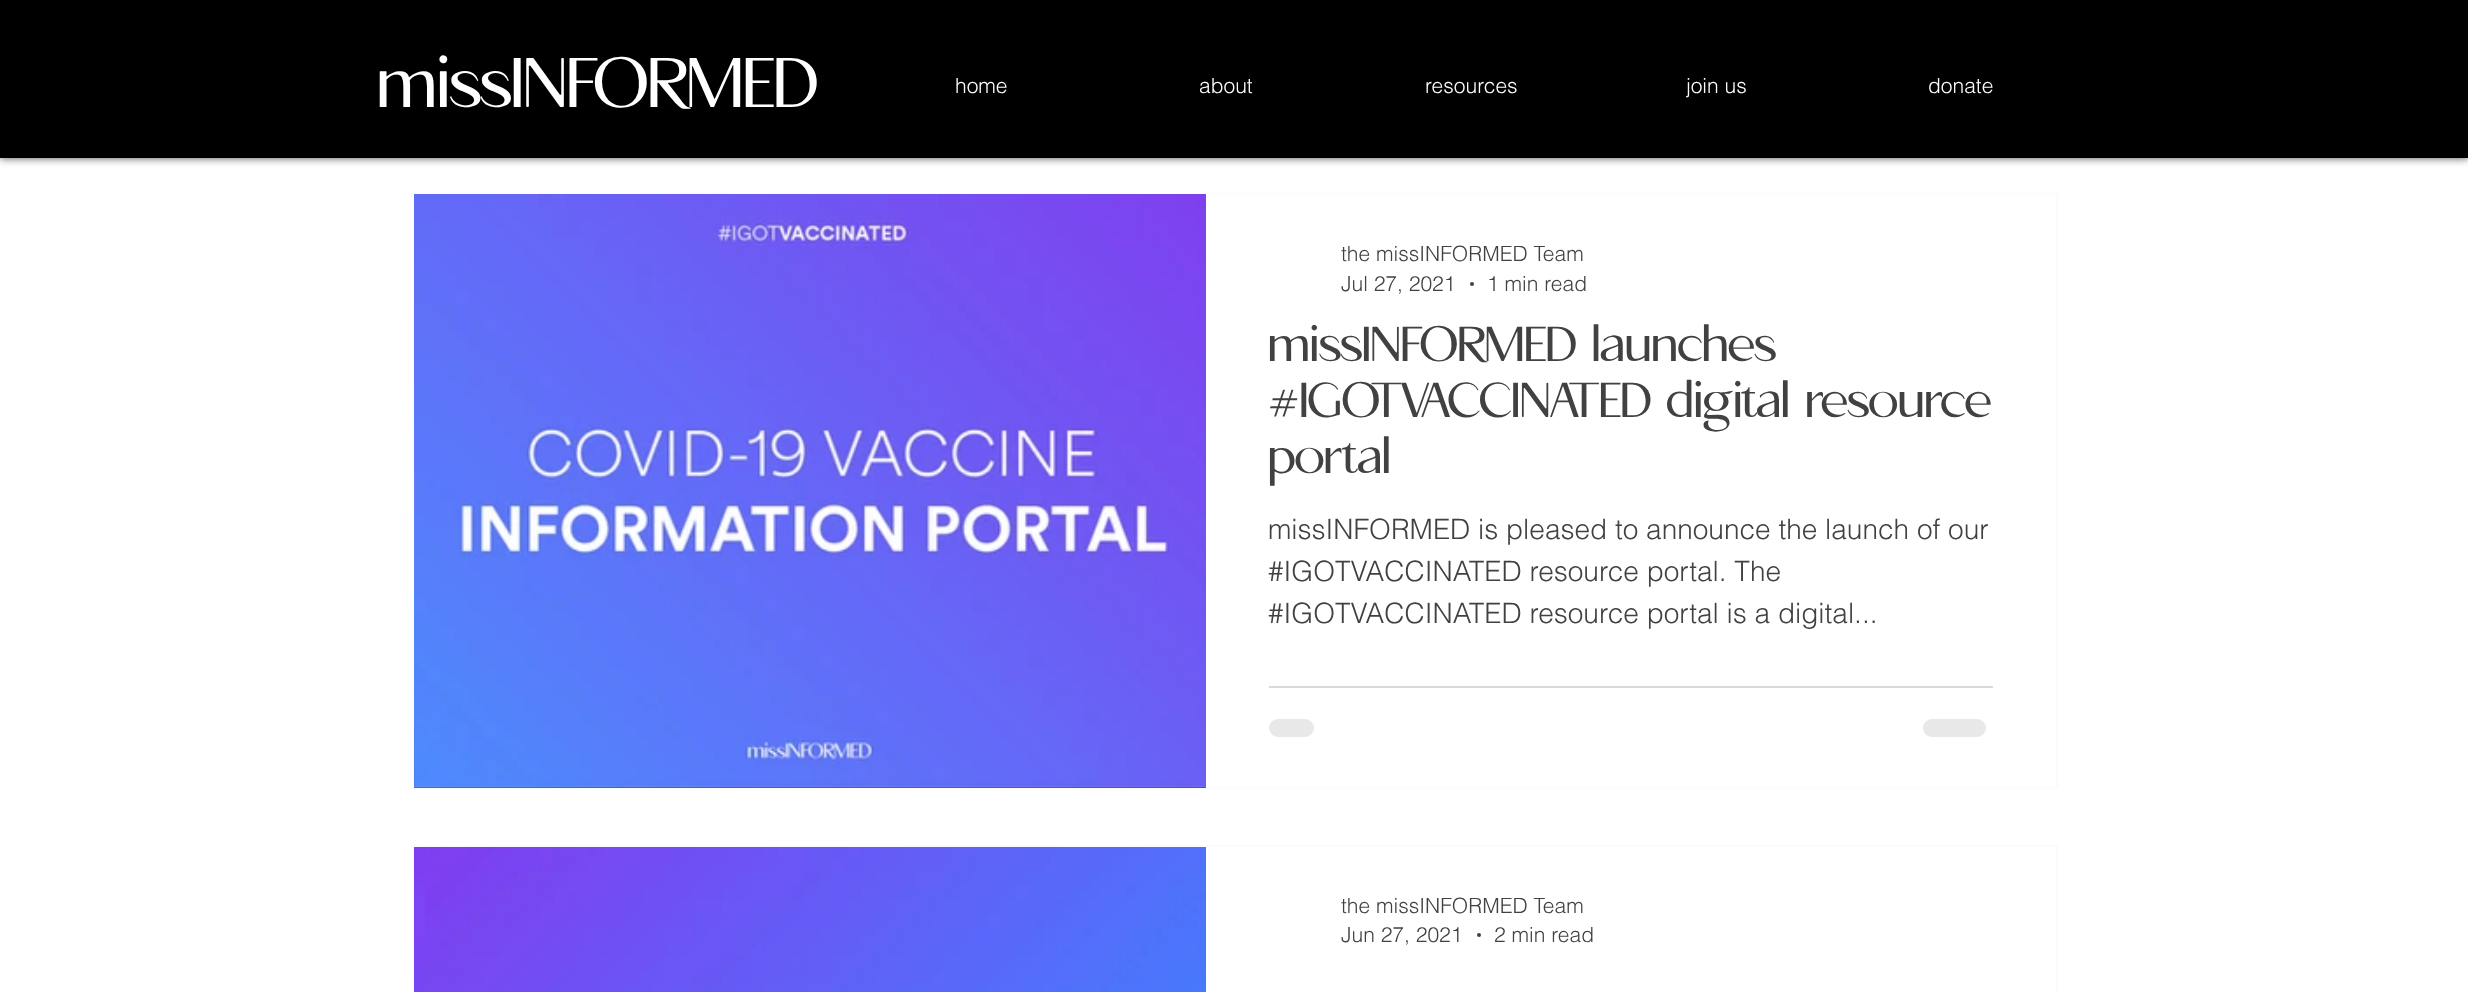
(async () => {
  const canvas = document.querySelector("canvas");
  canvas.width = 2468;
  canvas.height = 992;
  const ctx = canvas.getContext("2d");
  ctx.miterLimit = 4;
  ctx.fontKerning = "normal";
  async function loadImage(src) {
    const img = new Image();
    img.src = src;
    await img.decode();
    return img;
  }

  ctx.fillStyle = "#ffffff";
  ctx.fillRect(0, 0, 2468, 992);
  ctx.fillStyle = "rgba(0, 0, 0, 0.7)";
  ctx.filter = "blur(4.5px)";
  ctx.beginPath();
  ctx.rect(0, 0, 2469, 158);
  ctx.fill();
  ctx.filter = "none";
  ctx.fillStyle = "#000000";
  ctx.fillRect(0, 0, 2468, 158);
  ctx.strokeStyle = "#fbfbfb";
  ctx.lineWidth = 2;
  ctx.strokeRect(414, 194, 1643, 594);
  ctx.drawImage(await loadImage("img/1.png"), 414, 194, 1, 594);
  ctx.drawImage(await loadImage("img/2.png"), 415, 194, 791, 594);
  ctx.fillStyle = "#ffffff";
  ctx.fillRect(1206, 194, 850, 594);
  ctx.fillStyle = "#414141";
  ctx.beginPath();
  ctx.arc(1472, 284, 2, 0, Math.PI * 2);
  ctx.fill();
  ctx.fillStyle = "#d9d9d9";
  ctx.fillRect(1269, 686, 724, 2);
  ctx.fillStyle = "#e8e8e8";
  ctx.beginPath();
  ctx.roundRect(1269, 719, 45, 18, 9);
  ctx.fill();
  ctx.beginPath();
  ctx.roundRect(1923, 719, 63, 18, 9);
  ctx.fill();
  ctx.strokeRect(414, 846, 1643, 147);
  ctx.drawImage(await loadImage("img/3.png"), 414, 847, 11, 145);
  ctx.drawImage(await loadImage("img/4.png"), 425, 847, 781, 145);
  ctx.fillStyle = "#414141";
  ctx.beginPath();
  ctx.arc(1479, 935, 2, 0, Math.PI * 2);
  ctx.fill();
  ctx.font = "70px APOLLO";
  ctx.fillStyle = "#ffffff";
  ctx.fillText("missINFORMED", 377, 107);
  ctx.font = "300 21px helvetica";
  for (const [text, x, y] of [
    ["home", 955, 93],
    ["about", 1199, 93],
    ["resources", 1425, 93],
    ["join us", 1686, 93],
    ["donate", 1928, 93],
  ]) {
    ctx.fillText(text, x, y);
  }
  ctx.fillStyle = "#414141";
  for (const [text, x, y] of [
    ["the missINFORMED Team", 1341, 261],
    ["Jul 27, 2021", 1341, 291],
    ["1 min read", 1487, 291],
  ]) {
    ctx.fillText(text, x, y);
  }
  ctx.font = "49px APOLLO";
  for (const [text, x, y] of [
    ["missINFORMED launches", 1268, 361],
    ["#IGOTVACCINATED digital resource", 1268, 417],
    ["portal", 1268, 473],
  ]) {
    ctx.fillText(text, x, y);
  }
  ctx.font = "300 28px helvetica";
  for (const [text, x, y] of [
    ["missINFORMED is pleased to announce the launch of our", 1268, 539],
    ["#IGOTVACCINATED resource portal. The", 1268, 581],
    ["#IGOTVACCINATED resource portal is a digital...", 1268, 623],
  ]) {
    ctx.fillText(text, x, y);
  }
  ctx.font = "300 21px helvetica";
  for (const [text, x, y] of [
    ["the missINFORMED Team", 1341, 913],
    ["Jun 27, 2021", 1341, 942],
    ["2 min read", 1494, 942],
  ]) {
    ctx.fillText(text, x, y);
  }
})();
